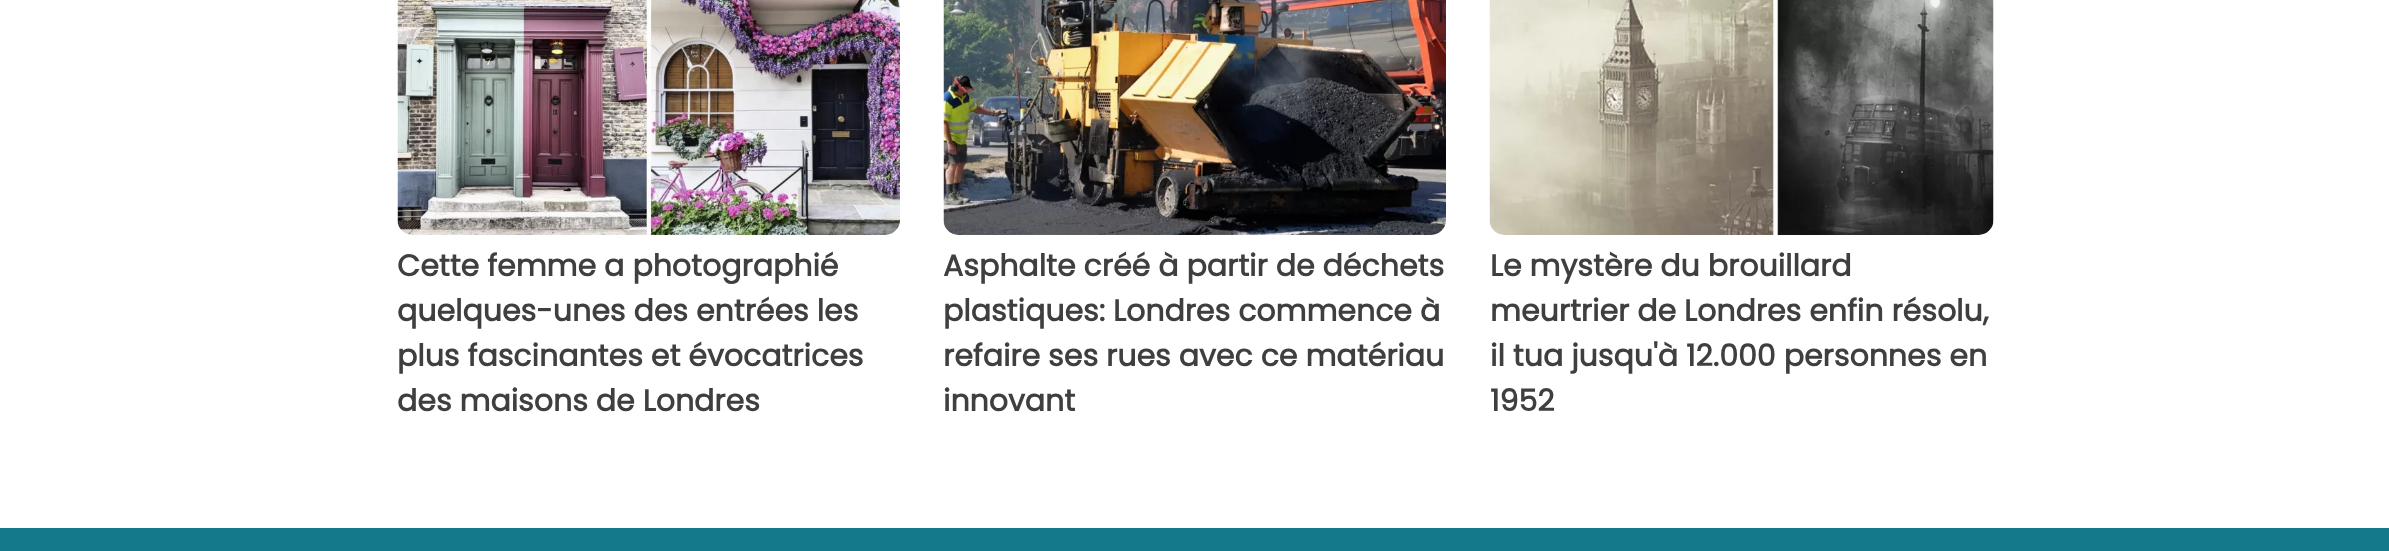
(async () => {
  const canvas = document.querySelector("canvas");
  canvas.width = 2389;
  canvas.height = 551;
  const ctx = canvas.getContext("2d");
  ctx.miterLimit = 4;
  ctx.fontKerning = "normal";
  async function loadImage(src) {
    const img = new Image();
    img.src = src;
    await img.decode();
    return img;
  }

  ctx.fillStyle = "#ffffff";
  ctx.fillRect(0, 0, 2389, 551);
  ctx.drawImage(await loadImage("img/1.png"), 397, 0, 503, 235);
  ctx.drawImage(await loadImage("img/2.png"), 943, 0, 503, 235);
  ctx.drawImage(await loadImage("img/3.png"), 1489, 0, 505, 235);
  ctx.fillStyle = "#14798a";
  ctx.fillRect(0, 528, 2389, 23);
  ctx.font = "bold 30px Poppins";
  ctx.fillStyle = "#3f3f3f";
  for (const [text, x, y] of [
    ["Cette femme a photographié", 397, 276],
    ["quelques-unes des entrées les", 397, 321],
    ["plus fascinantes et évocatrices", 397, 366],
    ["des maisons de Londres", 397, 411],
    ["Asphalte créé à partir de déchets", 943, 276],
    ["plastiques: Londres commence à", 943, 321],
    ["refaire ses rues avec ce matériau", 943, 366],
    ["innovant", 943, 411],
    ["Le mystère du brouillard", 1490, 276],
    ["meurtrier de Londres enfin résolu,", 1490, 321],
    ["il tua jusqu'à 12.000 personnes en", 1490, 366],
    ["1952", 1490, 411],
  ]) {
    ctx.fillText(text, x, y);
  }
})();
